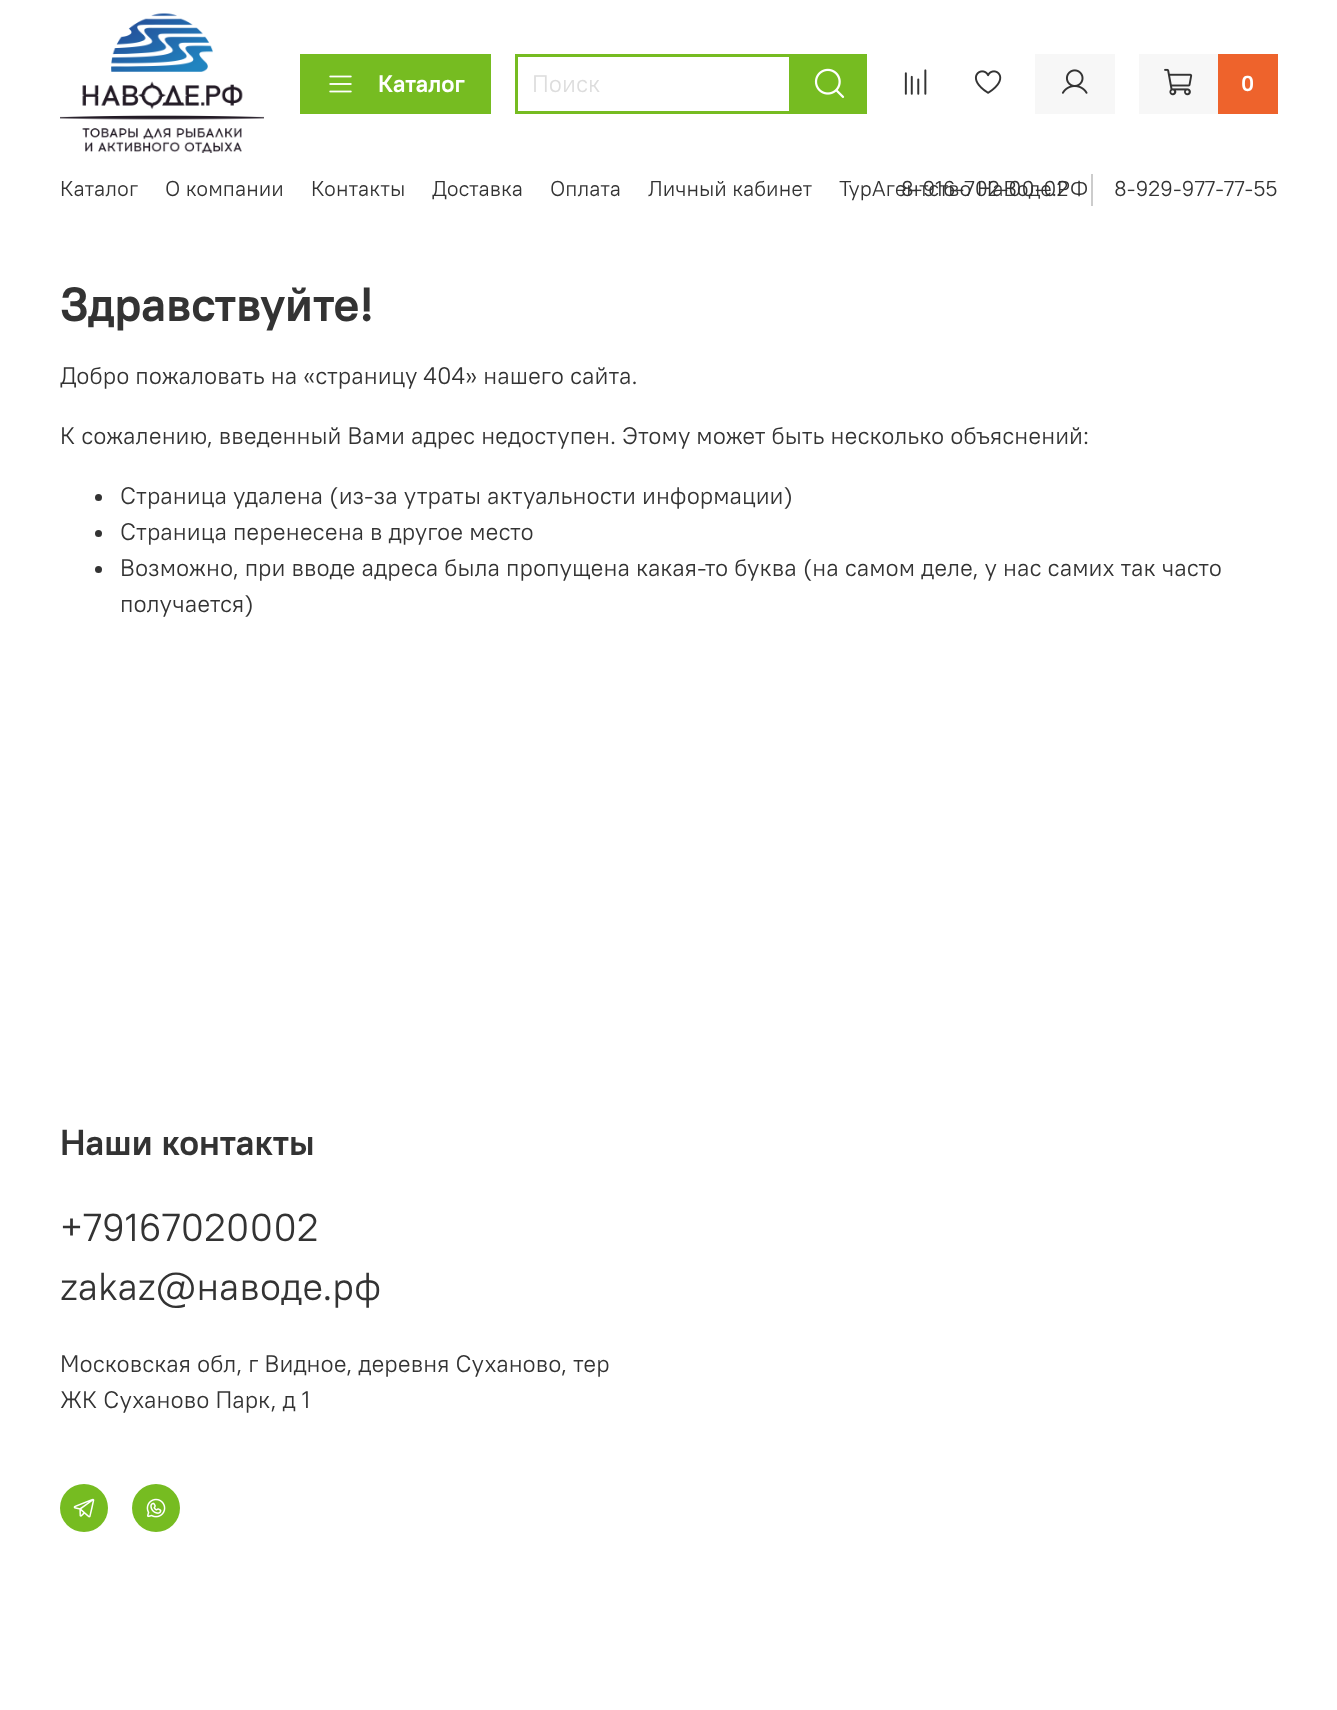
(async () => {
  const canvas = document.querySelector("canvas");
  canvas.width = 1337;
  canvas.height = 1710;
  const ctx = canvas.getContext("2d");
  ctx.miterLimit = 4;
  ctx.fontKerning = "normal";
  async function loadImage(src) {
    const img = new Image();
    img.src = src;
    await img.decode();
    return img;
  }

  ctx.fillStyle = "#ffffff";
  ctx.fillRect(0, 0, 1337, 1710);
  ctx.drawImage(await loadImage("img/1.png"), 60, 13, 204, 140);
  ctx.fillStyle = "#76bc21";
  ctx.fillRect(300, 54, 191, 60);
  ctx.drawImage(await loadImage("img/2.png"), 329, 75, 23, 18);
  ctx.strokeStyle = "#76bc21";
  ctx.lineWidth = 3;
  ctx.strokeRect(516.5, 55.5, 274, 57);
  ctx.fillRect(792, 54, 75, 60);
  ctx.drawImage(await loadImage("img/3.png"), 814, 68, 31, 30);
  ctx.drawImage(await loadImage("img/4.png"), 904, 69, 23, 26);
  ctx.drawImage(await loadImage("img/5.png"), 974, 70, 28, 24);
  ctx.fillStyle = "#f7f7f7";
  ctx.fillRect(1035, 54, 80, 60);
  ctx.drawImage(await loadImage("img/6.png"), 1061, 69, 27, 25);
  ctx.fillRect(1139, 54, 79, 60);
  ctx.drawImage(await loadImage("img/7.png"), 1164, 68, 29, 28);
  ctx.fillStyle = "#ee632c";
  ctx.fillRect(1218, 54, 60, 60);
  ctx.fillStyle = "#cccccc";
  ctx.fillRect(1091, 174, 2, 32);
  ctx.fillStyle = "#333333";
  ctx.beginPath();
  ctx.arc(98.5, 497.5, 3.5, 0, Math.PI * 2);
  ctx.fill();
  ctx.beginPath();
  ctx.arc(98.5, 533.5, 3.5, 0, Math.PI * 2);
  ctx.fill();
  ctx.beginPath();
  ctx.arc(98.5, 569.5, 3.5, 0, Math.PI * 2);
  ctx.fill();
  ctx.fillStyle = "#76bc21";
  ctx.beginPath();
  ctx.arc(84, 1508, 24, 0, Math.PI * 2);
  ctx.fill();
  ctx.drawImage(await loadImage("img/8.png"), 73, 1498, 22, 20);
  ctx.beginPath();
  ctx.arc(156, 1508, 24, 0, Math.PI * 2);
  ctx.fill();
  ctx.drawImage(await loadImage("img/9.png"), 146, 1498, 20, 20);
  ctx.font = "bold 24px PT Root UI";
  ctx.fillStyle = "#ffffff";
  ctx.fillText("Каталог", 378, 92);
  ctx.font = "24px PT Root UI";
  ctx.fillStyle = "#dddddd";
  ctx.fillText("Поиск", 532, 92);
  ctx.font = "bold 21.6px PT Root UI";
  ctx.fillStyle = "#ffffff";
  ctx.fillText("0", 1241, 91);
  ctx.font = "21.6px PT Root UI";
  ctx.fillStyle = "#333333";
  for (const [text, x, y] of [
    ["Каталог", 60, 196],
    ["О компании", 165, 196],
    ["Контакты", 311, 196],
    ["Доставка", 432, 196],
    ["Оплата", 550, 196],
    ["Личный кабинет", 648, 196],
    ["ТурАгентство НаВоде.РФ", 839, 196],
    ["8-916-702-00-02", 901, 196],
    ["8-929-977-77-55", 1114, 196],
  ]) {
    ctx.fillText(text, x, y);
  }
  ctx.font = "bold 48px PT Root UI";
  ctx.fillText("Здравствуйте!", 60, 321);
  ctx.font = "24px PT Root UI";
  for (const [text, x, y] of [
    ["Добро пожаловать на «страницу 404» нашего сайта.", 60, 384],
    ["К сожалению, введенный Вами адрес недоступен. Этому может быть несколько объяснений:", 60, 444],
    ["Страница удалена (из-за утраты актуальности информации)", 120, 504],
    ["Страница перенесена в другое место", 120, 540],
    ["Возможно, при вводе адреса была пропущена какая-то буква (на самом деле, у нас самих так часто", 120, 576],
    ["получается)", 120, 612],
  ]) {
    ctx.fillText(text, x, y);
  }
  ctx.font = "bold 36px PT Root UI";
  ctx.fillText("Наши контакты", 60, 1155);
  ctx.font = "39px PT Root UI";
  ctx.fillText("+79167020002", 60, 1241);
  ctx.fillText("zakaz@наводе.рф", 60, 1300);
  ctx.font = "24px PT Root UI";
  ctx.fillText("Московская обл, г Видное, деревня Суханово, тер", 60, 1372);
  ctx.fillText("ЖК Суханово Парк, д 1", 60, 1408);
})();
